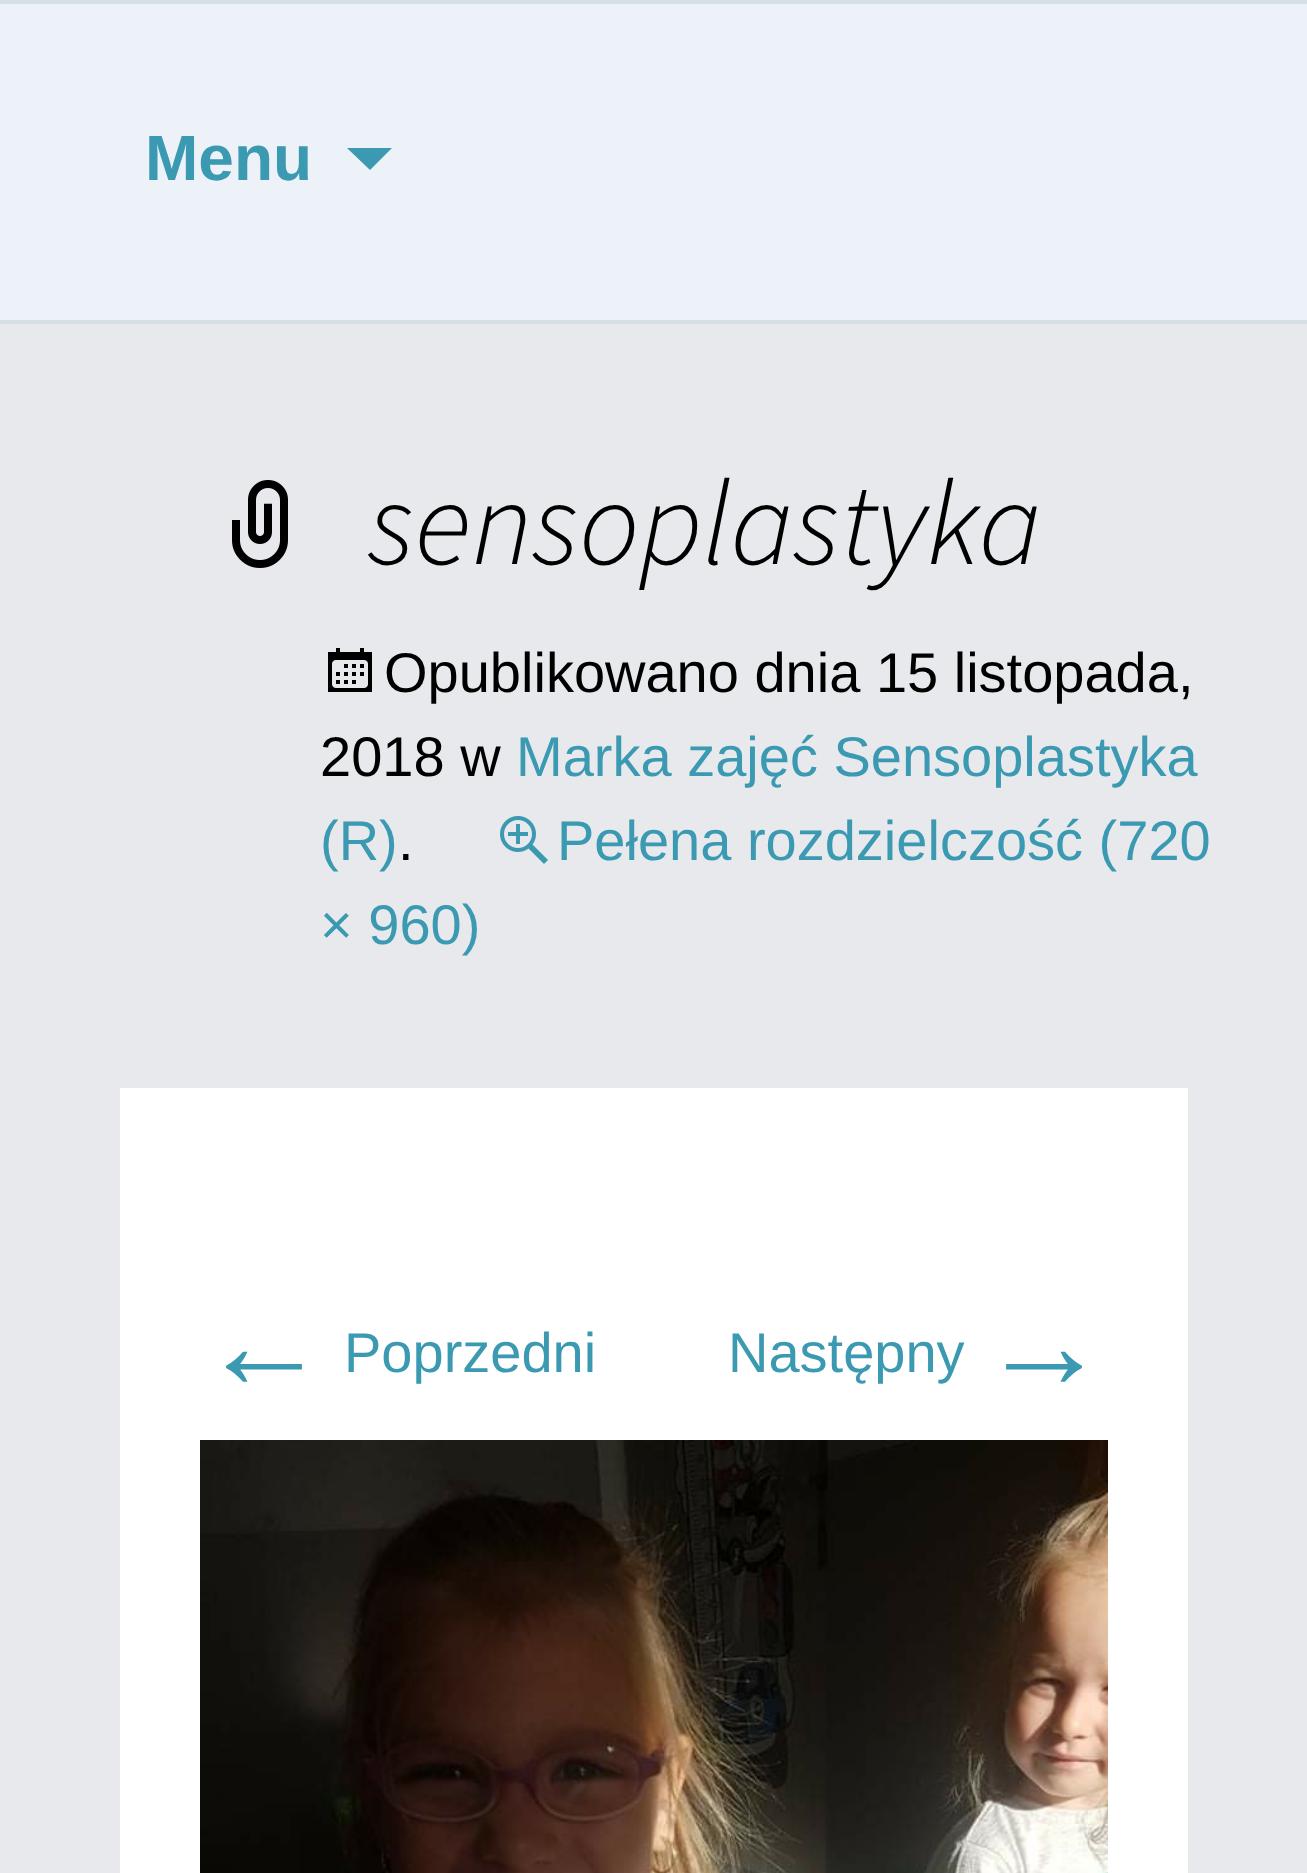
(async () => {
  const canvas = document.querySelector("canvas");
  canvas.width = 1307;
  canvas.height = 1873;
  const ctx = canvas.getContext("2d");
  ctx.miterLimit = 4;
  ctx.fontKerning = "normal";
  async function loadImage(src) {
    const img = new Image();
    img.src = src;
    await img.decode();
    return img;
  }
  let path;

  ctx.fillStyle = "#ecf2f7";
  ctx.fillRect(0, 0, 1307, 1873);
  ctx.fillStyle = "#d5dfe5";
  ctx.fillRect(0, 0, 1307, 4);
  ctx.fillRect(0, 320, 1307, 4);
  ctx.fillStyle = "#3b99b2";
  path = new Path2D("M347 148L370 170L392 148Z");
  ctx.fill(path);
  ctx.fillStyle = "#e7e9ec";
  ctx.fillRect(0, 324, 1307, 1549);
  ctx.drawImage(await loadImage("img/1.png"), 232, 480, 56, 88);
  ctx.drawImage(await loadImage("img/2.png"), 328, 648, 44, 44);
  ctx.drawImage(await loadImage("img/3.png"), 500, 816, 48, 48);
  ctx.fillStyle = "#ffffff";
  ctx.fillRect(120, 1088, 1068, 785);
  ctx.drawImage(await loadImage("img/4.png"), 200, 1440, 908, 433);
  ctx.font = "bold 64px Liberation Sans";
  ctx.fillStyle = "#3b99b2";
  ctx.fillText("Menu", 145, 180);
  ctx.font = "italic 300 120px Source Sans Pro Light";
  ctx.fillStyle = "#000000";
  ctx.fillText("sensoplastyka", 368, 564);
  ctx.font = "56px Liberation Sans";
  ctx.fillText("Opublikowano dnia 15 listopada,", 384, 692);
  ctx.fillText("2018 w", 320, 776);
  ctx.fillStyle = "#3b99b2";
  ctx.fillText("Marka zajęć Sensoplastyka", 516, 776);
  ctx.fillText("(R)", 320, 860);
  ctx.fillStyle = "#000000";
  ctx.fillText(".", 398, 860);
  ctx.fillStyle = "#3b99b2";
  ctx.fillText("Pełena rozdzielczość (720", 557, 860);
  ctx.fillText("× 960)", 320, 944);
  ctx.font = "128px Liberation Sans";
  ctx.fillText("←", 200, 1388);
  ctx.font = "56px Liberation Sans";
  ctx.fillText("Poprzedni", 344, 1372);
  ctx.fillText("Następny", 728, 1372);
  ctx.font = "128px Liberation Sans";
  ctx.fillText("→", 980, 1388);
})();
